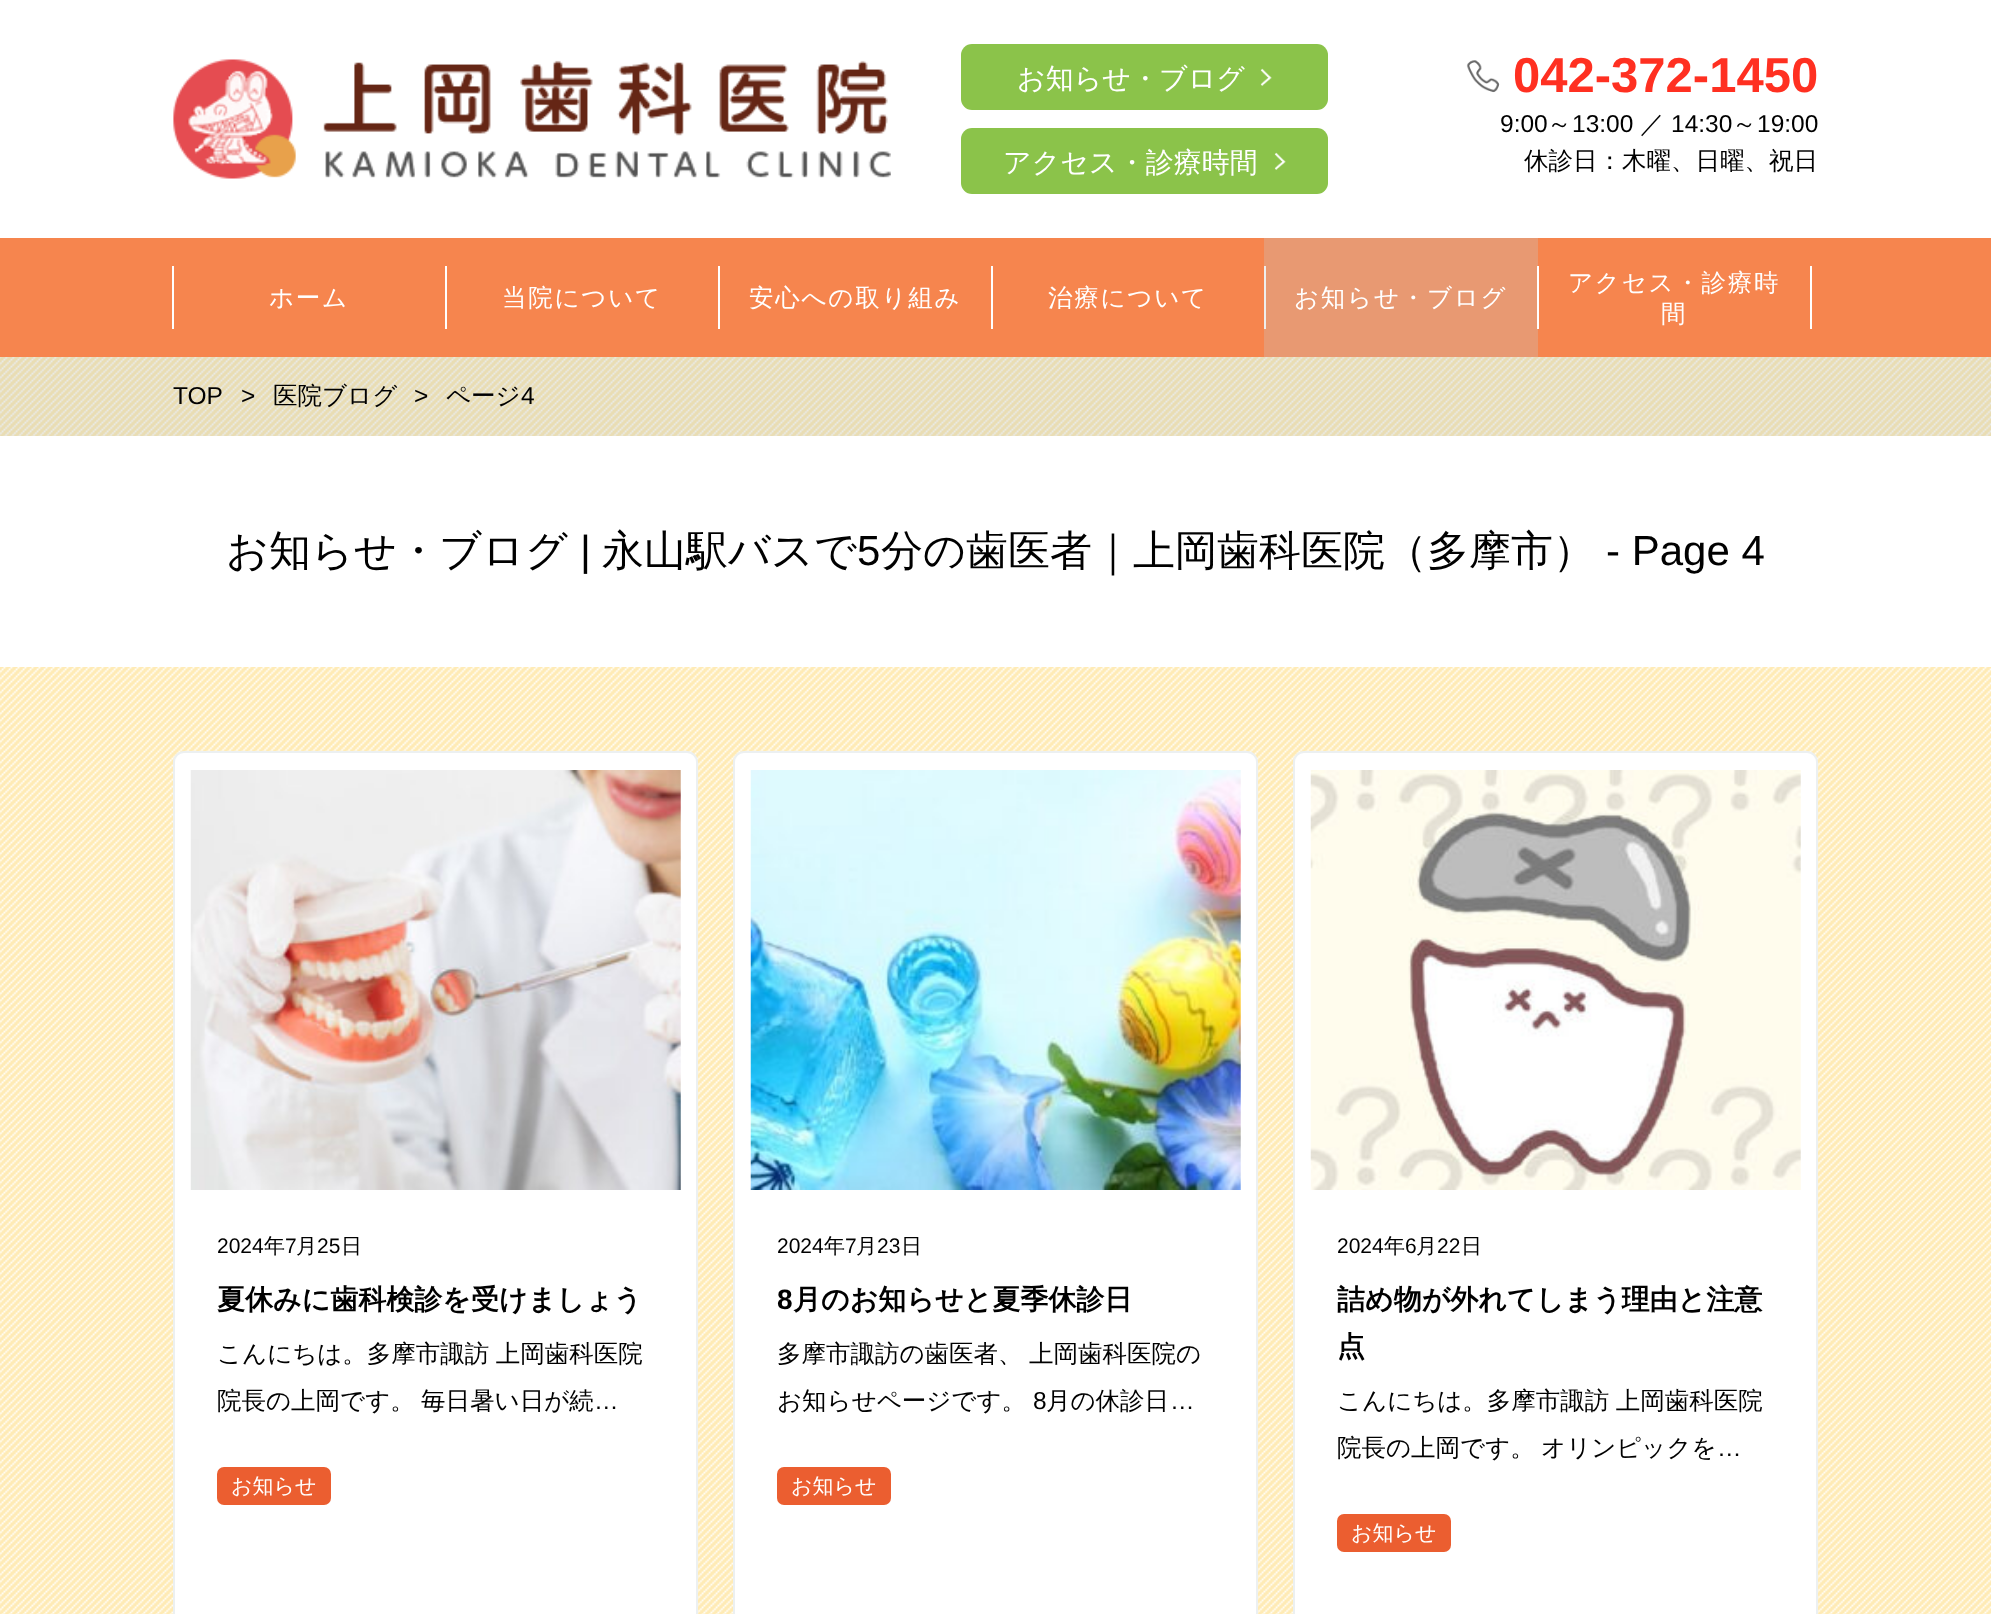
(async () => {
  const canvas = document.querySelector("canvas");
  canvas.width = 1991;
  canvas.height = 1614;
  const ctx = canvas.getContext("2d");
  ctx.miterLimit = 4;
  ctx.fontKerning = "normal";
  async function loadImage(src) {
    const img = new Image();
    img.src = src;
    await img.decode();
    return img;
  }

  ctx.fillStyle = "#ffffff";
  ctx.fillRect(0, 0, 1991, 1614);
  ctx.drawImage(await loadImage("img/1.png"), 173, 59, 718, 120);
  ctx.fillStyle = "#8bc34a";
  ctx.beginPath();
  ctx.roundRect(961, 44, 367, 66, 11);
  ctx.fill();
  ctx.drawImage(await loadImage("img/2.png"), 1260, 68, 12, 18);
  ctx.beginPath();
  ctx.roundRect(961, 128, 367, 66, 11);
  ctx.fill();
  ctx.drawImage(await loadImage("img/2.png"), 1274, 152, 12, 18);
  ctx.drawImage(await loadImage("img/3.png"), 1466, 60, 34, 33);
  for (const [x, y, w, h, color] of [
    [0, 238, 1991, 119, "#f6854e"],
    [1264, 238, 274, 119, "#e89972"],
    [172, 266, 2, 63, "#ffffff"],
    [445, 266, 2, 63, "#ffffff"],
    [718, 266, 2, 63, "#ffffff"],
    [991, 266, 2, 63, "#ffffff"],
    [1264, 266, 2, 63, "#eeeeee"],
    [1537, 266, 2, 63, "#ffffff"],
    [1810, 266, 2, 63, "#ffffff"],
    [0, 357, 1991, 1257, "#ffebb5"],
  ]) {
    ctx.fillStyle = color;
    ctx.fillRect(x, y, w, h);
  }
  ctx.drawImage(await loadImage("img/4.png"), 0, 357, 1991, 1257);
  ctx.fillStyle = "rgba(145, 163, 174, 0.2)";
  ctx.fillRect(0, 357, 1991, 79);
  ctx.fillStyle = "#ffffff";
  ctx.fillRect(0, 436, 1991, 231);
  ctx.beginPath();
  ctx.roundRect(174, 752, 523, 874, 10);
  ctx.fill();
  ctx.strokeStyle = "#ecf0f1";
  ctx.lineWidth = 2;
  ctx.stroke();
  ctx.drawImage(await loadImage("img/5.png"), 190, 770, 491, 420);
  ctx.fillStyle = "#eb5e30";
  ctx.beginPath();
  ctx.roundRect(217, 1467, 114, 38, 7);
  ctx.fill();
  ctx.fillStyle = "#ffffff";
  ctx.beginPath();
  ctx.roundRect(734, 752, 523, 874, 10);
  ctx.fill();
  ctx.stroke();
  ctx.drawImage(await loadImage("img/6.png"), 750, 770, 491, 420);
  ctx.fillStyle = "#eb5e30";
  ctx.beginPath();
  ctx.roundRect(777, 1467, 114, 38, 7);
  ctx.fill();
  ctx.fillStyle = "#ffffff";
  ctx.beginPath();
  ctx.roundRect(1294, 752, 523, 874, 10);
  ctx.fill();
  ctx.stroke();
  ctx.drawImage(await loadImage("img/7.png"), 1310, 770, 491, 420);
  ctx.fillStyle = "#eb5e30";
  ctx.beginPath();
  ctx.roundRect(1337, 1514, 114, 38, 7);
  ctx.fill();
  ctx.font = "500 28px WenQuanYi Zen Hei";
  ctx.fillStyle = "#ffffff";
  ctx.fillText("お知らせ・ブログ", 1017, 88);
  ctx.fillText("アクセス・診療時間", 1003, 172);
  ctx.font = "bold 49px Liberation Sans";
  ctx.fillStyle = "#ff3021";
  ctx.fillText("042-372-1450", 1513, 92);
  ctx.font = "24.5px Liberation Sans";
  ctx.fillStyle = "#000000";
  ctx.fillText("9:00", 1500, 132);
  ctx.font = "500 24.5px WenQuanYi Zen Hei";
  ctx.fillText("～", 1547, 132);
  ctx.font = "24.5px Liberation Sans";
  ctx.fillText("13:00", 1572, 132);
  ctx.font = "500 24.5px WenQuanYi Zen Hei";
  ctx.fillText("／", 1640, 132);
  ctx.font = "24.5px Liberation Sans";
  ctx.fillText("14:30", 1671, 132);
  ctx.font = "500 24.5px WenQuanYi Zen Hei";
  ctx.fillText("～", 1732, 132);
  ctx.font = "24.5px Liberation Sans";
  ctx.fillText("19:00", 1757, 132);
  ctx.font = "500 24.5px WenQuanYi Zen Hei";
  ctx.fillText("休診日：木曜、日曜、祝日", 1524, 169);
  ctx.letterSpacing = "1.75px";
  ctx.fillStyle = "#ffffff";
  for (const [text, x, y] of [
    ["ホーム", 269, 306],
    ["当院について", 502, 306],
    ["安心への取り組み", 749, 306],
    ["治療について", 1048, 306],
    ["お知らせ・ブログ", 1294, 306],
    ["アクセス・診療時", 1568, 291],
    ["間", 1661, 322],
  ]) {
    ctx.fillText(text, x, y);
  }
  ctx.letterSpacing = "0px";
  ctx.font = "24.5px Liberation Sans";
  ctx.fillStyle = "#000000";
  ctx.fillText("TOP", 173, 404);
  ctx.fillText(">", 241, 404);
  ctx.font = "500 24.5px WenQuanYi Zen Hei";
  ctx.fillText("医院ブログ", 273, 404);
  ctx.font = "24.5px Liberation Sans";
  ctx.fillText(">", 414, 404);
  ctx.font = "500 24.5px WenQuanYi Zen Hei";
  ctx.fillText("ページ", 446, 404);
  ctx.font = "24.5px Liberation Sans";
  ctx.fillText("4", 521, 404);
  ctx.font = "500 42px WenQuanYi Zen Hei";
  ctx.fillText("お知らせ・ブログ", 226, 565);
  ctx.font = "42px Liberation Sans";
  ctx.fillText("|", 580, 565);
  ctx.font = "500 42px WenQuanYi Zen Hei";
  ctx.fillText("永山駅バスで", 602, 565);
  ctx.font = "42px Liberation Sans";
  ctx.fillText("5", 857, 565);
  ctx.font = "500 42px WenQuanYi Zen Hei";
  ctx.fillText("分の歯医者｜上岡歯科医院（多摩市）", 881, 565);
  ctx.font = "42px Liberation Sans";
  ctx.fillText("- Page 4", 1606, 565);
  ctx.font = "21px Liberation Sans";
  ctx.fillText("2024", 217, 1253);
  ctx.font = "500 21px WenQuanYi Zen Hei";
  ctx.fillText("年", 264, 1253);
  ctx.font = "21px Liberation Sans";
  ctx.fillText("7", 285, 1253);
  ctx.font = "500 21px WenQuanYi Zen Hei";
  ctx.fillText("月", 296, 1253);
  ctx.font = "21px Liberation Sans";
  ctx.fillText("25", 317, 1253);
  ctx.font = "500 21px WenQuanYi Zen Hei";
  ctx.fillText("日", 341, 1253);
  ctx.font = "bold 28px WenQuanYi Zen Hei";
  ctx.fillText("夏休みに歯科検診を受けましょう", 217, 1309);
  ctx.wordSpacing = "-1px";
  ctx.font = "500 24.5px WenQuanYi Zen Hei";
  ctx.fillText("こんにちは。多摩市諏訪 上岡歯科医院", 217, 1362);
  ctx.fillText("院長の上岡です。 毎日暑い日が続", 217, 1409);
  ctx.wordSpacing = "0px";
  ctx.font = "24.5px Liberation Sans";
  ctx.fillText("…", 594, 1409);
  ctx.font = "500 21px WenQuanYi Zen Hei";
  ctx.fillStyle = "#ffffff";
  ctx.fillText("お知らせ", 231, 1493);
  ctx.font = "21px Liberation Sans";
  ctx.fillStyle = "#000000";
  ctx.fillText("2024", 777, 1253);
  ctx.font = "500 21px WenQuanYi Zen Hei";
  ctx.fillText("年", 824, 1253);
  ctx.font = "21px Liberation Sans";
  ctx.fillText("7", 845, 1253);
  ctx.font = "500 21px WenQuanYi Zen Hei";
  ctx.fillText("月", 856, 1253);
  ctx.font = "21px Liberation Sans";
  ctx.fillText("23", 877, 1253);
  ctx.font = "500 21px WenQuanYi Zen Hei";
  ctx.fillText("日", 901, 1253);
  ctx.font = "bold 28px Liberation Sans";
  ctx.fillText("8", 777, 1309);
  ctx.font = "bold 28px WenQuanYi Zen Hei";
  ctx.fillText("月のお知らせと夏季休診日", 793, 1309);
  ctx.wordSpacing = "-1px";
  ctx.font = "500 24.5px WenQuanYi Zen Hei";
  ctx.fillText("多摩市諏訪の歯医者、 上岡歯科医院の", 777, 1362);
  ctx.wordSpacing = "0px";
  ctx.fillText("お知らせページです。", 777, 1409);
  ctx.font = "24.5px Liberation Sans";
  ctx.fillText("8", 1033, 1409);
  ctx.font = "500 24.5px WenQuanYi Zen Hei";
  ctx.fillText("月の休診日", 1046, 1409);
  ctx.font = "24.5px Liberation Sans";
  ctx.fillText("…", 1170, 1409);
  ctx.font = "500 21px WenQuanYi Zen Hei";
  ctx.fillStyle = "#ffffff";
  ctx.fillText("お知らせ", 791, 1493);
  ctx.font = "21px Liberation Sans";
  ctx.fillStyle = "#000000";
  ctx.fillText("2024", 1337, 1253);
  ctx.font = "500 21px WenQuanYi Zen Hei";
  ctx.fillText("年", 1384, 1253);
  ctx.font = "21px Liberation Sans";
  ctx.fillText("6", 1405, 1253);
  ctx.font = "500 21px WenQuanYi Zen Hei";
  ctx.fillText("月", 1416, 1253);
  ctx.font = "21px Liberation Sans";
  ctx.fillText("22", 1437, 1253);
  ctx.font = "500 21px WenQuanYi Zen Hei";
  ctx.fillText("日", 1461, 1253);
  ctx.font = "bold 28px WenQuanYi Zen Hei";
  ctx.fillText("詰め物が外れてしまう理由と注意", 1337, 1309);
  ctx.fillText("点", 1337, 1356);
  ctx.wordSpacing = "-1px";
  ctx.font = "500 24.5px WenQuanYi Zen Hei";
  ctx.fillText("こんにちは。多摩市諏訪 上岡歯科医院", 1337, 1409);
  ctx.fillText("院長の上岡です。 オリンピックを", 1337, 1456);
  ctx.wordSpacing = "0px";
  ctx.font = "24.5px Liberation Sans";
  ctx.fillText("…", 1717, 1456);
  ctx.font = "500 21px WenQuanYi Zen Hei";
  ctx.fillStyle = "#ffffff";
  ctx.fillText("お知らせ", 1351, 1540);
})();
